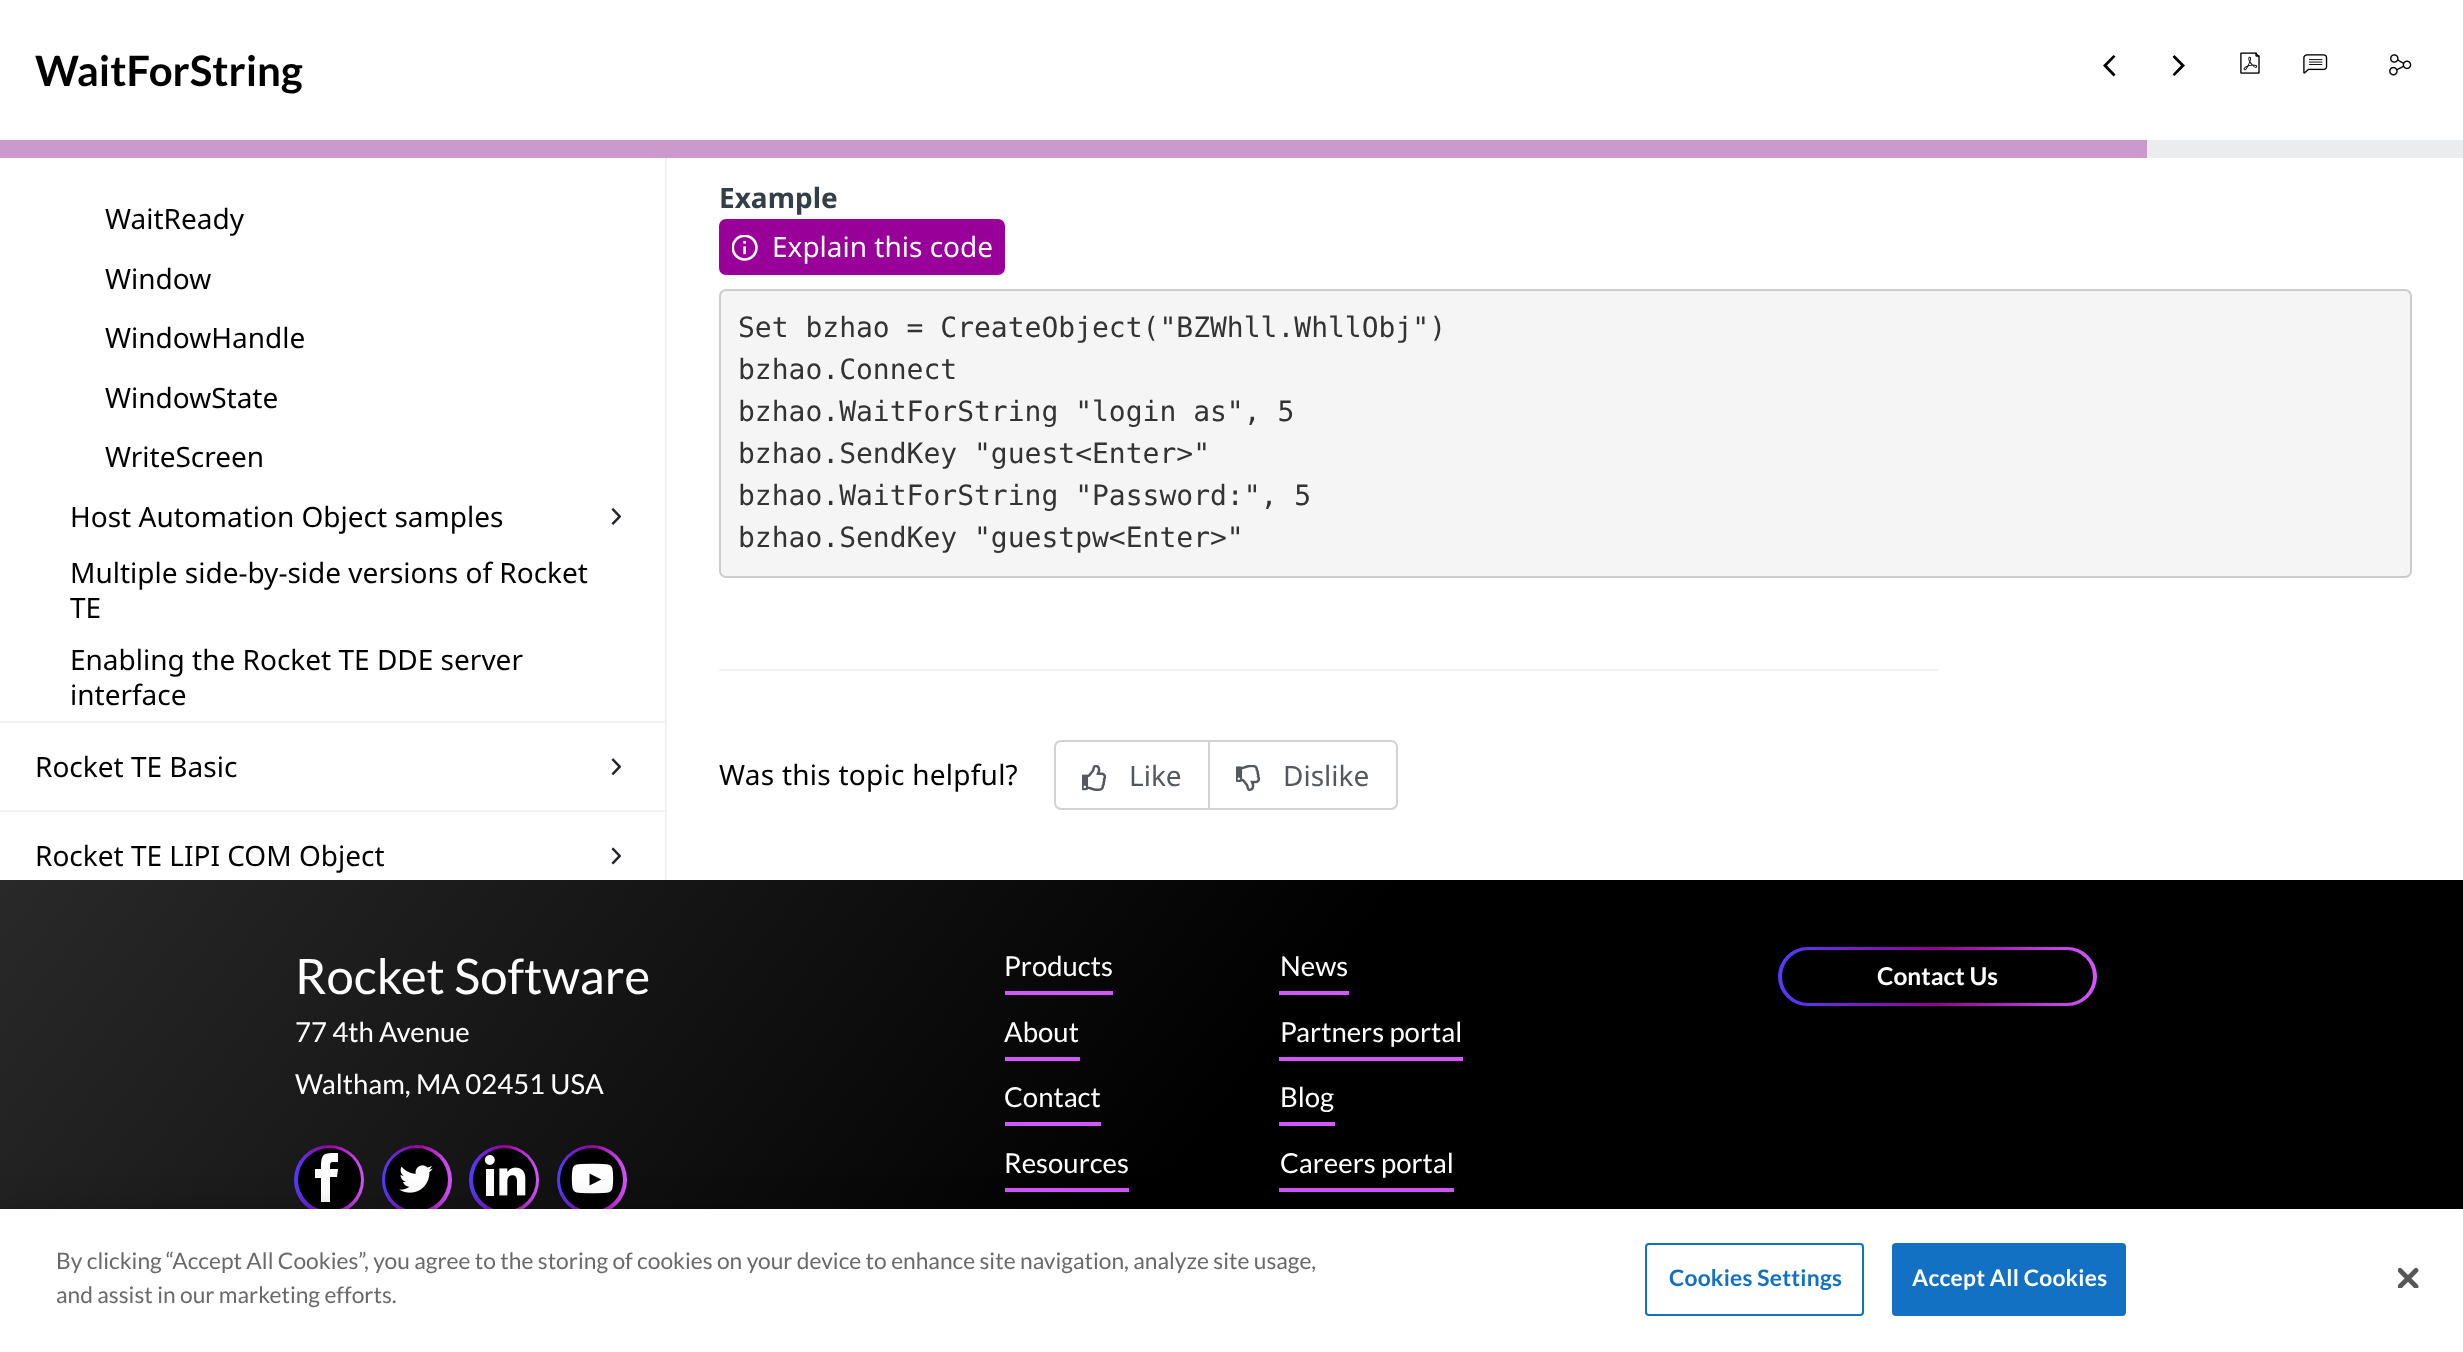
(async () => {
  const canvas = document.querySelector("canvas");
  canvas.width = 2463;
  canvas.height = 1352;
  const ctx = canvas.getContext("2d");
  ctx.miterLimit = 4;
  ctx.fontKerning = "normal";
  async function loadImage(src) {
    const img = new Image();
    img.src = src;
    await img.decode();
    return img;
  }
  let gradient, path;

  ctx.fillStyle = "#ffffff";
  ctx.fillRect(0, 0, 2463, 1352);
  ctx.fillStyle = "#000000";
  path = new Path2D("M2115.5 56.5L2113.5 55L2103 65.5L2113.5 76.5L2115.5 74.5L2107 65.5Z");
  ctx.fill(path);
  path = new Path2D("M2172.5 74.5L2174.5 76L2185 65.5L2174.5 55L2172.5 57L2181 65.5Z");
  ctx.fill(path);
  ctx.drawImage(await loadImage("img/1.png"), 2240, 52, 20, 22);
  ctx.drawImage(await loadImage("img/2.png"), 2303, 54, 25, 20);
  ctx.drawImage(await loadImage("img/3.png"), 2389, 54, 23, 22);
  for (const [x, y, w, h, color] of [
    [0, 140, 2147, 18, "#cc99cc"],
    [2147, 140, 316, 18, "#ebecee"],
    [665, 158, 2, 722, "#f2f2f2"],
    [0, 721, 665, 2, "#f2f2f2"],
  ]) {
    ctx.fillStyle = color;
    ctx.fillRect(x, y, w, h);
  }
  ctx.drawImage(await loadImage("img/4.png"), 611, 508, 10, 17);
  ctx.fillRect(0, 810, 665, 2);
  ctx.drawImage(await loadImage("img/5.png"), 611, 758, 10, 17);
  ctx.drawImage(await loadImage("img/6.png"), 611, 847, 10, 18);
  ctx.fillStyle = "#990099";
  ctx.beginPath();
  ctx.roundRect(720, 220, 284, 54, 6);
  ctx.fill();
  ctx.strokeStyle = "#990099";
  ctx.lineWidth = 2;
  ctx.stroke();
  ctx.drawImage(await loadImage("img/7.png"), 732, 235, 26, 26);
  ctx.fillStyle = "#f5f5f5";
  ctx.beginPath();
  ctx.roundRect(720, 290, 1691, 287, 6);
  ctx.fill();
  ctx.strokeStyle = "#cccccc";
  ctx.stroke();
  ctx.fillStyle = "#f2f2f2";
  ctx.fillRect(719, 669, 1220, 2);
  ctx.beginPath();
  ctx.roundRect(1055, 741, 342, 68, 6);
  ctx.strokeStyle = "#d2d2d2";
  ctx.stroke();
  ctx.fillStyle = "#d2d2d2";
  ctx.fillRect(1208, 742, 2, 67);
  ctx.drawImage(await loadImage("img/8.png"), 1082, 765, 25, 26);
  ctx.drawImage(await loadImage("img/9.png"), 1236, 765, 25, 26);
  gradient = ctx.createLinearGradient(318, 473, 2146, 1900);
  gradient.addColorStop(0, "#292929");
  gradient.addColorStop(0.48, "#000000");
  gradient.addColorStop(1, "#000000");
  ctx.fillStyle = gradient;
  ctx.fillRect(0, 880, 2463, 329);
  gradient = ctx.createLinearGradient(294, 1180, 364, 1180);
  gradient.addColorStop(0, "#543cfb");
  gradient.addColorStop(0.5, "#990099");
  gradient.addColorStop(1, "#d257fc");
  ctx.fillStyle = gradient;
  ctx.beginPath();
  ctx.arc(329, 1180, 35, 0, Math.PI * 2);
  ctx.fill();
  ctx.fillStyle = "#000000";
  ctx.beginPath();
  ctx.arc(329.5, 1179.5, 31.5, 0, Math.PI * 2);
  ctx.fill();
  ctx.fillStyle = "#ffffff";
  path = new Path2D("M321 1202H330V1177H337L338 1169H330C330 1161 330 1162 338 1162V1153C323 1153 321 1153 321 1169H315V1178H321Z");
  ctx.fill(path, "evenodd");
  gradient = ctx.createLinearGradient(382, 1180, 452, 1180);
  gradient.addColorStop(0, "#543cfb");
  gradient.addColorStop(0.5, "#990099");
  gradient.addColorStop(1, "#d257fc");
  ctx.fillStyle = gradient;
  ctx.beginPath();
  ctx.arc(417, 1180, 35, 0, Math.PI * 2);
  ctx.fill();
  ctx.fillStyle = "#000000";
  ctx.beginPath();
  ctx.arc(416.5, 1179.5, 31.5, 0, Math.PI * 2);
  ctx.fill();
  ctx.drawImage(await loadImage("img/10.png"), 399, 1165, 34, 28);
  gradient = ctx.createLinearGradient(469, 1180, 539, 1180);
  gradient.addColorStop(0, "#543cfb");
  gradient.addColorStop(0.5, "#990099");
  gradient.addColorStop(1, "#d257fc");
  ctx.fillStyle = gradient;
  ctx.beginPath();
  ctx.arc(504, 1180, 35, 0, Math.PI * 2);
  ctx.fill();
  ctx.fillStyle = "#000000";
  ctx.beginPath();
  ctx.arc(504.5, 1179.5, 31.5, 0, Math.PI * 2);
  ctx.fill();
  ctx.drawImage(await loadImage("img/11.png"), 484, 1155, 42, 41);
  gradient = ctx.createLinearGradient(557, 1180, 627, 1180);
  gradient.addColorStop(0, "#543cfb");
  gradient.addColorStop(0.5, "#990099");
  gradient.addColorStop(1, "#d257fc");
  ctx.fillStyle = gradient;
  ctx.beginPath();
  ctx.arc(592, 1180, 35, 0, Math.PI * 2);
  ctx.fill();
  ctx.fillStyle = "#000000";
  ctx.beginPath();
  ctx.arc(591.5, 1179.5, 31.5, 0, Math.PI * 2);
  ctx.fill();
  ctx.drawImage(await loadImage("img/12.png"), 571, 1163, 43, 31);
  for (const [x, y, w, h, color] of [
    [1005, 991, 108, 4, "#d257fc"],
    [1005, 1057, 75, 4, "#d257fc"],
    [1005, 1122, 96, 4, "#d257fc"],
    [1005, 1188, 124, 4, "#d257fc"],
    [1279, 991, 70, 4, "#d257fc"],
    [1279, 1057, 184, 4, "#d257fc"],
    [1279, 1122, 56, 4, "#d257fc"],
    [1279, 1188, 175, 4, "#d257fc"],
  ]) {
    ctx.fillStyle = color;
    ctx.fillRect(x, y, w, h);
  }
  gradient = ctx.createLinearGradient(1778, 977, 2097, 977);
  gradient.addColorStop(0, "#543cfb");
  gradient.addColorStop(0.5, "#990099");
  gradient.addColorStop(1, "#d257fc");
  ctx.fillStyle = gradient;
  ctx.beginPath();
  ctx.roundRect(1778, 947, 319, 59, 29.5);
  ctx.fill();
  ctx.fillStyle = "#000000";
  ctx.beginPath();
  ctx.roundRect(1782, 950, 311, 53, 26.5);
  ctx.fill();
  ctx.fillStyle = "rgba(0, 0, 0, 0.2)";
  ctx.filter = "blur(16px)";
  ctx.beginPath();
  ctx.rect(0, 1209, 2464, 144);
  ctx.fill();
  ctx.filter = "none";
  ctx.fillStyle = "#ffffff";
  ctx.fillRect(0, 1209, 2463, 143);
  ctx.beginPath();
  ctx.roundRect(1646, 1244, 217, 71, 3);
  ctx.strokeStyle = "#1371c3";
  ctx.stroke();
  ctx.fillStyle = "#1371c3";
  ctx.beginPath();
  ctx.roundRect(1893, 1244, 232, 71, 3);
  ctx.fill();
  ctx.stroke();
  ctx.drawImage(await loadImage("img/13.png"), 2398, 1267, 21, 21);
  ctx.font = "bold 42px Lato";
  ctx.fillStyle = "#000000";
  ctx.fillText("WaitForString", 35, 86);
  ctx.font = "28px Noto Sans";
  for (const [text, x, y] of [
    ["WaitReady", 105, 229],
    ["Window", 105, 289],
    ["WindowHandle", 105, 348],
    ["WindowState", 105, 408],
    ["WriteScreen", 105, 467],
    ["Host Automation Object samples", 70, 527],
    ["Multiple side-by-side versions of Rocket", 70, 583],
    ["TE", 70, 618],
    ["Enabling the Rocket TE DDE server", 70, 670],
    ["interface", 70, 705],
    ["Rocket TE Basic", 35, 777],
    ["Rocket TE LIPI COM Object", 35, 866],
  ]) {
    ctx.fillText(text, x, y);
  }
  ctx.font = "bold 28px Noto Sans";
  ctx.fillStyle = "#323e48";
  ctx.fillText("Example", 719, 208);
  ctx.font = "28px Noto Sans";
  ctx.fillStyle = "#ffffff";
  ctx.fillText("Explain this code", 772, 257);
  ctx.font = "28px DejaVu Sans Mono";
  ctx.fillStyle = "#333333";
  for (const [text, x, y] of [
    ["Set bzhao = CreateObject(\"BZWhll.WhllObj\")", 738, 337],
    ["bzhao.Connect", 738, 379],
    ["bzhao.WaitForString \"login as\", 5", 738, 421],
    ["bzhao.SendKey \"guest<Enter>\"", 738, 463],
    ["bzhao.WaitForString \"Password:\", 5", 738, 505],
    ["bzhao.SendKey \"guestpw<Enter>\"", 738, 547],
  ]) {
    ctx.fillText(text, x, y);
  }
  ctx.letterSpacing = "0.25px";
  ctx.font = "28px Noto Sans";
  ctx.fillStyle = "#000000";
  ctx.fillText("Was this topic helpful?", 719, 785);
  ctx.letterSpacing = "0px";
  ctx.fillStyle = "#52585d";
  ctx.fillText("Like", 1129, 786);
  ctx.fillText("Dislike", 1283, 786);
  ctx.font = "49px Lato";
  ctx.fillStyle = "#ffffff";
  ctx.fillText("Rocket Software", 295, 994);
  ctx.font = "27.5px Lato";
  for (const [text, x, y] of [
    ["77 4th Avenue", 295, 1042],
    ["Waltham, MA 02451 USA", 295, 1094],
    ["Products", 1004, 976],
    ["About", 1004, 1042],
    ["Contact", 1004, 1107],
    ["Resources", 1004, 1173],
    ["News", 1280, 976],
    ["Partners portal", 1280, 1042],
    ["Blog", 1280, 1107],
    ["Careers portal", 1280, 1173],
  ]) {
    ctx.fillText(text, x, y);
  }
  ctx.font = "bold 24.5px Lato";
  ctx.fillText("Contact Us", 1877, 985);
  ctx.font = "22.75px Lato";
  ctx.fillStyle = "#696969";
  ctx.fillText("By clicking “Accept All Cookies”, you agree to the storing of cookies on your device to enhance site navigation, analyze site usage,", 56, 1269);
  ctx.fillText("and assist in our marketing efforts.", 56, 1303);
  ctx.letterSpacing = "0.25px";
  ctx.font = "bold 22.75px Lato";
  ctx.fillStyle = "#1371c3";
  ctx.fillText("Cookies Settings", 1669, 1286);
  ctx.fillStyle = "#ffffff";
  ctx.fillText("Accept All Cookies", 1912, 1286);
})();
